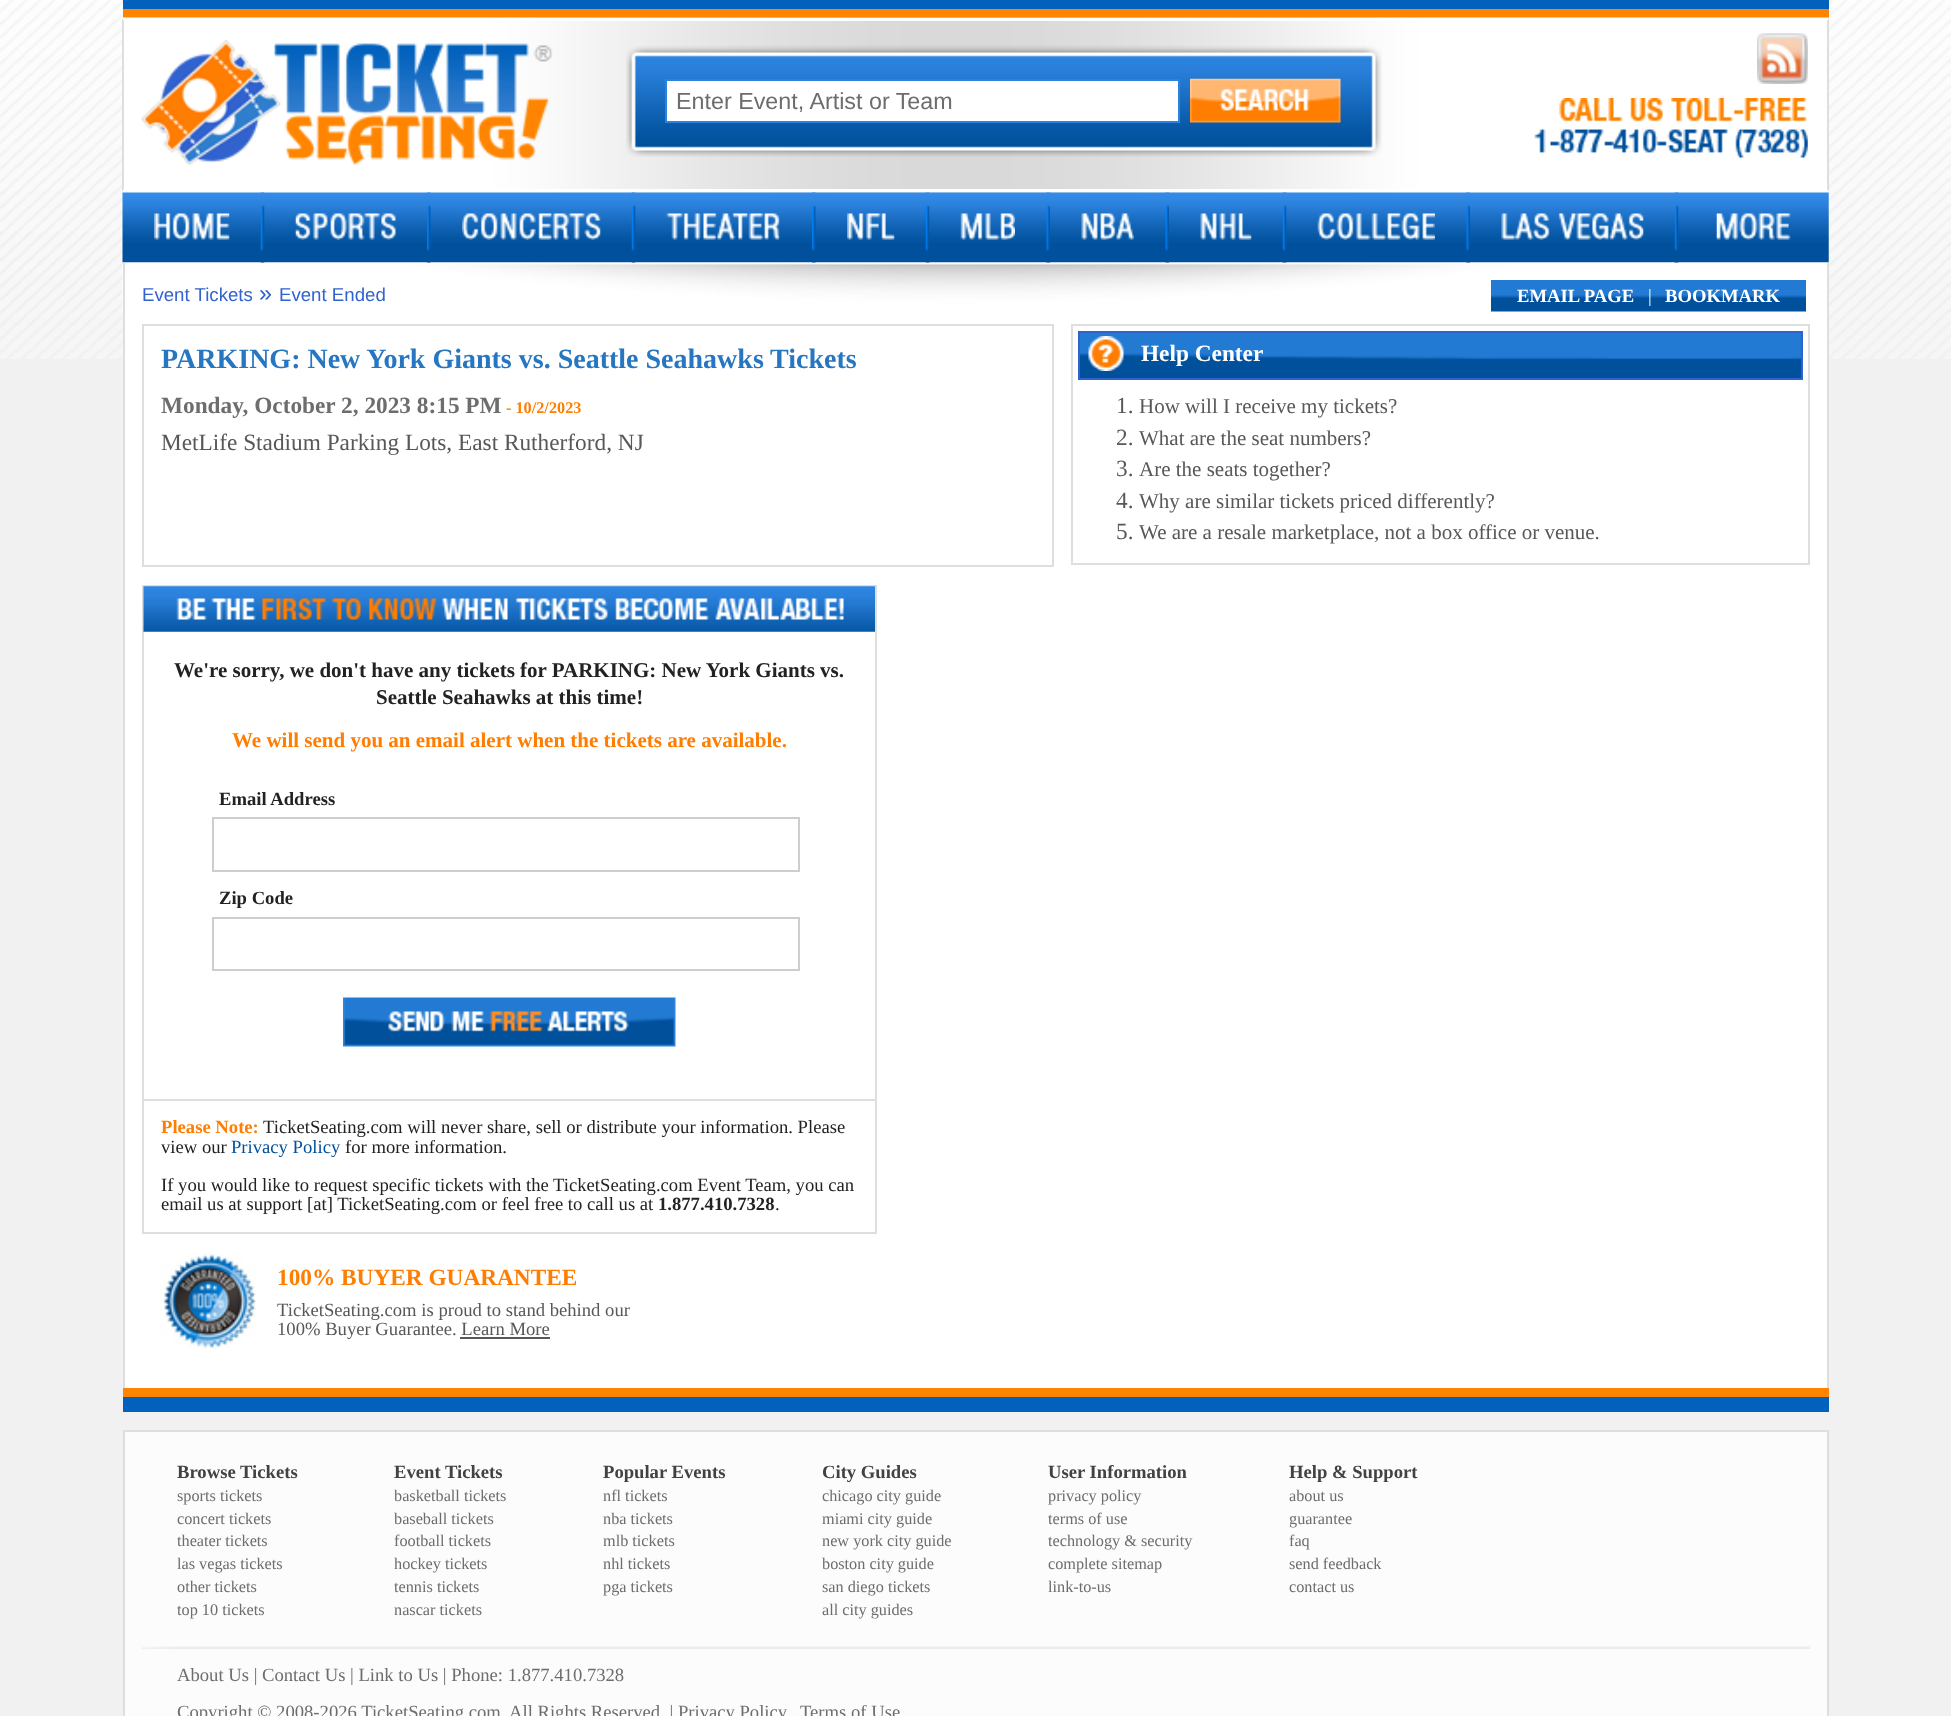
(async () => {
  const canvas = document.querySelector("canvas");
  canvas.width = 1951;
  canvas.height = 1716;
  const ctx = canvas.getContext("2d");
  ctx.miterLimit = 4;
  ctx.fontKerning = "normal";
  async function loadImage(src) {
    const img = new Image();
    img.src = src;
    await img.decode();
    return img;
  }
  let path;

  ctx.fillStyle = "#f1f1f1";
  ctx.fillRect(0, 0, 1951, 1716);
  ctx.drawImage(await loadImage("img/1.png"), 0, 0, 1951, 359);
  for (const [x, y, w, h, color] of [
    [123, 18, 1706, 1370, "#ffffff"],
    [123, 0, 1706, 9, "#0161bc"],
    [123, 9, 1706, 9, "#ff8400"],
  ]) {
    ctx.fillStyle = color;
    ctx.fillRect(x, y, w, h);
  }
  ctx.drawImage(await loadImage("img/2.png"), 122, 17, 1707, 176);
  ctx.fillStyle = "#ffffff";
  path = new Path2D("M122 18H1829L1827 21H124Z");
  ctx.fill(path);
  ctx.fillStyle = "#dedede";
  path = new Path2D("M1829 18V192L1827 189V21Z");
  ctx.fill(path);
  ctx.fillStyle = "#ffffff";
  path = new Path2D("M1829 192H122L124 189H1827Z");
  ctx.fill(path);
  ctx.fillStyle = "#dedede";
  path = new Path2D("M122 192V18L124 21V189Z");
  ctx.fill(path);
  ctx.drawImage(await loadImage("img/3.png"), 141, 40, 412, 125);
  ctx.drawImage(await loadImage("img/4.png"), 626, 45, 756, 112);
  ctx.fillStyle = "#ffffff";
  ctx.beginPath();
  ctx.rect(666, 80, 513, 42);
  ctx.fill();
  ctx.strokeStyle = "#2c83de";
  ctx.lineWidth = 2;
  ctx.stroke();
  ctx.drawImage(await loadImage("img/5.png"), 1190, 78, 151, 45);
  ctx.drawImage(await loadImage("img/6.png"), 1757, 33, 51, 51);
  ctx.drawImage(await loadImage("img/7.png"), 1534, 98, 274, 60);
  ctx.drawImage(await loadImage("img/8.png"), 122, 192, 1707, 71);
  ctx.drawImage(await loadImage("img/9.png"), 154, 213, 76, 27);
  ctx.drawImage(await loadImage("img/29.png"), 122, 262, 1707, 47);
  ctx.drawImage(await loadImage("img/10.png"), 260, 192, 5, 71);
  ctx.drawImage(await loadImage("img/11.png"), 295, 213, 101, 27);
  ctx.drawImage(await loadImage("img/12.png"), 427, 192, 4, 71);
  ctx.drawImage(await loadImage("img/13.png"), 462, 213, 139, 27);
  ctx.drawImage(await loadImage("img/14.png"), 631, 192, 5, 71);
  ctx.drawImage(await loadImage("img/15.png"), 666, 213, 115, 27);
  ctx.drawImage(await loadImage("img/16.png"), 812, 192, 4, 71);
  ctx.drawImage(await loadImage("img/17.png"), 847, 213, 48, 27);
  ctx.drawImage(await loadImage("img/18.png"), 925, 192, 5, 71);
  ctx.drawImage(await loadImage("img/19.png"), 960, 213, 55, 27);
  ctx.drawImage(await loadImage("img/20.png"), 1046, 192, 4, 71);
  ctx.drawImage(await loadImage("img/21.png"), 1081, 213, 53, 27);
  ctx.drawImage(await loadImage("img/22.png"), 1165, 192, 4, 71);
  ctx.drawImage(await loadImage("img/23.png"), 1200, 213, 52, 27);
  ctx.drawImage(await loadImage("img/24.png"), 1282, 192, 5, 71);
  ctx.drawImage(await loadImage("img/25.png"), 1317, 213, 118, 27);
  ctx.drawImage(await loadImage("img/26.png"), 1466, 192, 4, 71);
  ctx.drawImage(await loadImage("img/27.png"), 1501, 213, 143, 27);
  ctx.drawImage(await loadImage("img/10.png"), 1674, 192, 5, 71);
  ctx.drawImage(await loadImage("img/28.png"), 1716, 213, 75, 27);
  ctx.fillStyle = "#dedede";
  ctx.fillRect(1827, 263, 2, 1125);
  ctx.fillRect(123, 263, 2, 1125);
  ctx.drawImage(await loadImage("img/30.png"), 1491, 280, 315, 32);
  ctx.strokeStyle = "#dedede";
  ctx.strokeRect(143, 325, 910, 241);
  ctx.strokeRect(1072, 325, 737, 239);
  ctx.drawImage(await loadImage("img/31.png"), 1080, 333, 721, 45);
  ctx.strokeStyle = "#3162ce";
  ctx.strokeRect(1079, 332, 723, 47);
  ctx.drawImage(await loadImage("img/32.png"), 1088, 336, 36, 35);
  ctx.strokeStyle = "#dedede";
  ctx.strokeRect(143, 586, 733, 647);
  ctx.drawImage(await loadImage("img/33.png"), 143, 586, 732, 46);
  ctx.drawImage(await loadImage("img/34.png"), 176, 598, 668, 22);
  ctx.strokeStyle = "#cecece";
  ctx.strokeRect(213, 818, 586, 53);
  ctx.strokeRect(213, 918, 586, 52);
  ctx.drawImage(await loadImage("img/35.png"), 343, 997, 333, 50);
  ctx.fillRect(144, 1099, 731, 2);
  ctx.drawImage(await loadImage("img/36.png"), 160, 1254, 96, 95);
  for (const [x, y, w, h, color] of [
    [460, 1337, 90, 2, "#585858"],
    [123, 1388, 1706, 9, "#ff8400"],
    [123, 1397, 1706, 15, "#0161bc"],
  ]) {
    ctx.fillStyle = color;
    ctx.fillRect(x, y, w, h);
  }
  ctx.fillStyle = "#fcfcfc";
  ctx.beginPath();
  ctx.rect(124, 1431, 1704, 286);
  ctx.fill();
  ctx.strokeStyle = "#dedede";
  ctx.stroke();
  ctx.fillStyle = "#ececec";
  ctx.fillRect(142, 1645, 1668, 4);
  ctx.drawImage(await loadImage("img/37.png"), 142, 1645, 1668, 4);
  ctx.font = "23.3px Liberation Sans";
  ctx.fillStyle = "#6d6d6d";
  ctx.fillText("Enter Event, Artist or Team", 676, 109);
  ctx.font = "18.65px Liberation Sans";
  ctx.fillStyle = "#3162ce";
  ctx.fillText("Event Tickets", 142, 301);
  ctx.font = "23.3px Liberation Sans";
  ctx.fillText("»", 259, 301);
  ctx.font = "18.65px Liberation Sans";
  ctx.fillText("Event Ended", 279, 301);
  ctx.font = "bold 18.65px Liberation Serif";
  ctx.fillStyle = "#ffffff";
  ctx.fillText("EMAIL PAGE", 1517, 302);
  ctx.font = "18.65px Liberation Serif";
  ctx.fillText("|", 1648, 302);
  ctx.font = "bold 18.65px Liberation Serif";
  ctx.fillText("BOOKMARK", 1665, 302);
  ctx.font = "bold 28px Liberation Serif";
  ctx.fillStyle = "#2676c2";
  ctx.fillText("PARKING: New York Giants vs. Seattle Seahawks", 161, 368);
  ctx.fillText("Tickets", 770, 368);
  ctx.font = "bold 23.3px Liberation Serif";
  ctx.fillStyle = "#6d6d6d";
  ctx.fillText("Monday, October 2, 2023 8:15 PM", 161, 413);
  ctx.font = "bold 16.25px Liberation Serif";
  ctx.fillStyle = "#ff7d00";
  ctx.fillText("- 10/2/2023", 506, 413);
  ctx.font = "23.3px Liberation Serif";
  ctx.fillStyle = "#585858";
  ctx.fillText("MetLife Stadium Parking Lots, East Rutherford, NJ", 161, 450);
  ctx.font = "bold 23.3px Liberation Serif";
  ctx.fillStyle = "#ffffff";
  ctx.fillText("Help Center", 1141, 361);
  ctx.font = "23.3px Liberation Serif";
  ctx.fillStyle = "#585858";
  ctx.fillText("1.", 1116, 413);
  ctx.font = "21px Liberation Serif";
  ctx.fillText("How will I receive my tickets?", 1139, 413);
  ctx.font = "23.3px Liberation Serif";
  ctx.fillText("2.", 1116, 445);
  ctx.font = "21px Liberation Serif";
  ctx.fillText("What are the seat numbers?", 1139, 445);
  ctx.font = "23.3px Liberation Serif";
  ctx.fillText("3.", 1116, 476);
  ctx.font = "21px Liberation Serif";
  ctx.fillText("Are the seats together?", 1139, 476);
  ctx.font = "23.3px Liberation Serif";
  ctx.fillText("4.", 1116, 508);
  ctx.font = "21px Liberation Serif";
  ctx.fillText("Why are similar tickets priced differently?", 1139, 508);
  ctx.font = "23.3px Liberation Serif";
  ctx.fillText("5.", 1116, 539);
  ctx.font = "21px Liberation Serif";
  ctx.fillText("We are a resale marketplace, not a box office or venue.", 1139, 539);
  ctx.font = "bold 21px Liberation Serif";
  ctx.fillStyle = "#222222";
  ctx.fillText("We're sorry, we don't have any tickets for PARKING: New York Giants vs.", 174, 677);
  ctx.fillText("Seattle Seahawks at this time!", 376, 704);
  ctx.fillStyle = "#ff7d00";
  ctx.fillText("We will send you an email alert when the tickets are available.", 232, 747);
  ctx.font = "bold 18.65px Liberation Serif";
  ctx.fillStyle = "#222222";
  ctx.fillText("Email Address", 219, 805);
  ctx.fillText("Zip Code", 219, 904);
  ctx.fillStyle = "#ff7d00";
  ctx.fillText("Please Note:", 161, 1133);
  ctx.font = "18.65px Liberation Serif";
  ctx.fillStyle = "#222222";
  ctx.fillText("TicketSeating.com will never share, sell or distribute your information. Please", 263, 1133);
  ctx.fillText("view our", 161, 1153);
  ctx.fillStyle = "#00509c";
  ctx.fillText("Privacy Policy", 231, 1153);
  ctx.fillStyle = "#222222";
  for (const [text, x, y] of [
    ["for more information.", 345, 1153],
    ["If you would like to request specific tickets with the TicketSeating.com Event Team, you can", 161, 1191],
    ["email us at support [at] TicketSeating.com or feel free to call us at", 161, 1210],
  ]) {
    ctx.fillText(text, x, y);
  }
  ctx.font = "bold 18.65px Liberation Serif";
  ctx.fillText("1.877.410.7328", 658, 1210);
  ctx.font = "18.65px Liberation Serif";
  ctx.fillText(".", 775, 1210);
  ctx.font = "bold 23.3px Liberation Serif";
  ctx.fillStyle = "#ff7d00";
  ctx.fillText("100% BUYER GUARANTEE", 277, 1285);
  ctx.font = "18.65px Liberation Serif";
  ctx.fillStyle = "#585858";
  ctx.fillText("TicketSeating.com is proud to stand behind our", 277, 1316);
  ctx.fillText("100% Buyer Guarantee. Learn More", 277, 1335);
  ctx.font = "bold 18.65px Liberation Serif";
  ctx.fillStyle = "#424242";
  ctx.fillText("Browse Tickets", 177, 1478);
  ctx.font = "16.25px Liberation Serif";
  ctx.fillStyle = "#6d6d6d";
  for (const [text, x, y] of [
    ["sports tickets", 177, 1501],
    ["concert tickets", 177, 1524],
    ["theater tickets", 177, 1546],
    ["las vegas tickets", 177, 1569],
    ["other tickets", 177, 1592],
    ["top 10 tickets", 177, 1615],
  ]) {
    ctx.fillText(text, x, y);
  }
  ctx.font = "bold 18.65px Liberation Serif";
  ctx.fillStyle = "#424242";
  ctx.fillText("Event Tickets", 394, 1478);
  ctx.font = "16.25px Liberation Serif";
  ctx.fillStyle = "#6d6d6d";
  for (const [text, x, y] of [
    ["basketball tickets", 394, 1501],
    ["baseball tickets", 394, 1524],
    ["football tickets", 394, 1546],
    ["hockey tickets", 394, 1569],
    ["tennis tickets", 394, 1592],
    ["nascar tickets", 394, 1615],
  ]) {
    ctx.fillText(text, x, y);
  }
  ctx.font = "bold 18.65px Liberation Serif";
  ctx.fillStyle = "#424242";
  ctx.fillText("Popular Events", 603, 1478);
  ctx.font = "16.25px Liberation Serif";
  ctx.fillStyle = "#6d6d6d";
  for (const [text, x, y] of [
    ["nfl tickets", 603, 1501],
    ["nba tickets", 603, 1524],
    ["mlb tickets", 603, 1546],
    ["nhl tickets", 603, 1569],
    ["pga tickets", 603, 1592],
  ]) {
    ctx.fillText(text, x, y);
  }
  ctx.font = "bold 18.65px Liberation Serif";
  ctx.fillStyle = "#424242";
  ctx.fillText("City Guides", 822, 1478);
  ctx.font = "16.25px Liberation Serif";
  ctx.fillStyle = "#6d6d6d";
  for (const [text, x, y] of [
    ["chicago city guide", 822, 1501],
    ["miami city guide", 822, 1524],
    ["new york city guide", 822, 1546],
    ["boston city guide", 822, 1569],
    ["san diego tickets", 822, 1592],
    ["all city guides", 822, 1615],
  ]) {
    ctx.fillText(text, x, y);
  }
  ctx.font = "bold 18.65px Liberation Serif";
  ctx.fillStyle = "#424242";
  ctx.fillText("User Information", 1048, 1478);
  ctx.font = "16.25px Liberation Serif";
  ctx.fillStyle = "#6d6d6d";
  for (const [text, x, y] of [
    ["privacy policy", 1048, 1501],
    ["terms of use", 1048, 1524],
    ["technology & security", 1048, 1546],
    ["complete sitemap", 1048, 1569],
    ["link-to-us", 1048, 1592],
  ]) {
    ctx.fillText(text, x, y);
  }
  ctx.font = "bold 18.65px Liberation Serif";
  ctx.fillStyle = "#424242";
  ctx.fillText("Help & Support", 1289, 1478);
  ctx.font = "16.25px Liberation Serif";
  ctx.fillStyle = "#6d6d6d";
  for (const [text, x, y] of [
    ["about us", 1289, 1501],
    ["guarantee", 1289, 1524],
    ["faq", 1289, 1546],
    ["send feedback", 1289, 1569],
    ["contact us", 1289, 1592],
  ]) {
    ctx.fillText(text, x, y);
  }
  ctx.font = "18.65px Liberation Serif";
  for (const [text, x, y] of [
    ["About Us | Contact Us | Link to Us | Phone: 1.877.410.7328", 177, 1681],
    ["Copyright © 2008-2026 TicketSeating.com", 177, 1718],
    ["All Rights Reserved. | Privacy Policy", 509, 1718],
    ["Terms of Use", 800, 1718],
  ]) {
    ctx.fillText(text, x, y);
  }
})();
